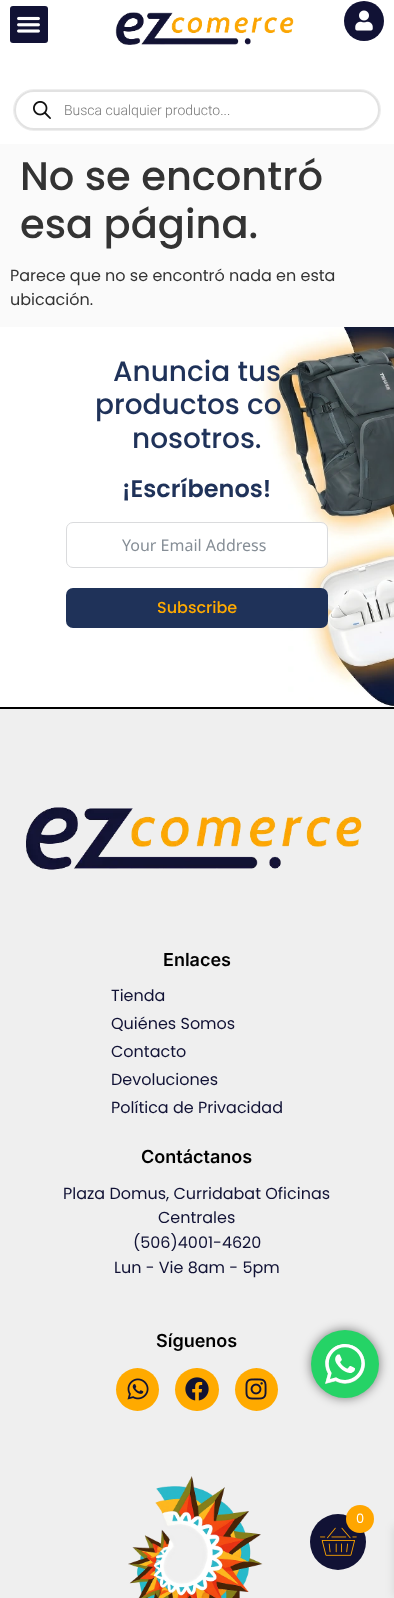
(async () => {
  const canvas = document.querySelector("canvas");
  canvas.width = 394;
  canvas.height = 1598;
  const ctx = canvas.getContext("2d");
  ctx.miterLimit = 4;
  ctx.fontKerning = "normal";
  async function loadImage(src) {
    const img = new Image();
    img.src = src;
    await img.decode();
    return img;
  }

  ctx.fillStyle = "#fafafa";
  ctx.fillRect(0, 0, 394, 1598);
  ctx.fillStyle = "#ffffff";
  ctx.fillRect(0, 0, 394, 144);
  ctx.fillStyle = "#111235";
  ctx.beginPath();
  ctx.roundRect(10, 6, 38, 37, 3);
  ctx.fill();
  ctx.drawImage(await loadImage("img/1.png"), 17, 16, 23, 17);
  ctx.drawImage(await loadImage("img/2.png"), 115, 12, 179, 33);
  ctx.beginPath();
  ctx.arc(364, 21, 20, 0, Math.PI * 2);
  ctx.fill();
  ctx.drawImage(await loadImage("img/3.png"), 355, 10, 18, 21);
  ctx.beginPath();
  ctx.roundRect(13.5, 89.5, 367, 41, 20.5);
  ctx.strokeStyle = "#eeeeee";
  ctx.stroke();
  ctx.fillStyle = "#ffffff";
  ctx.beginPath();
  ctx.roundRect(15, 91, 364, 38, 19);
  ctx.fill();
  ctx.strokeStyle = "#e2e2e2";
  ctx.lineWidth = 2;
  ctx.stroke();
  ctx.drawImage(await loadImage("img/4.png"), 33, 101, 18, 18);
  ctx.drawImage(await loadImage("img/5.png"), 0, 327, 394, 380);
  ctx.beginPath();
  ctx.roundRect(66.5, 522.5, 261, 45, 6.5);
  ctx.fill();
  ctx.strokeStyle = "#dadbdd";
  ctx.lineWidth = 1;
  ctx.stroke();
  ctx.fillStyle = "#1f3259";
  ctx.beginPath();
  ctx.roundRect(66, 588, 262, 40, 7);
  ctx.fill();
  ctx.fillStyle = "#efefef";
  ctx.fillRect(0, 709, 394, 889);
  ctx.fillStyle = "#000000";
  ctx.fillRect(0, 707, 394, 2);
  ctx.drawImage(await loadImage("img/6.png"), 26, 807, 336, 63);
  ctx.fillStyle = "#ffaa00";
  ctx.beginPath();
  ctx.arc(137.5, 1389.5, 21.5, 0, Math.PI * 2);
  ctx.fill();
  ctx.drawImage(await loadImage("img/7.png"), 127, 1378, 22, 22);
  ctx.beginPath();
  ctx.roundRect(175, 1368, 44, 43, 21.5);
  ctx.fill();
  ctx.drawImage(await loadImage("img/8.png"), 185, 1377, 24, 24);
  ctx.beginPath();
  ctx.arc(256.5, 1389.5, 21.5, 0, Math.PI * 2);
  ctx.fill();
  ctx.drawImage(await loadImage("img/9.png"), 245, 1378, 22, 22);
  ctx.drawImage(await loadImage("img/10.png"), 128, 1476, 135, 122);
  ctx.fillStyle = "rgba(0, 0, 0, 0.5)";
  ctx.filter = "blur(5.5px)";
  ctx.beginPath();
  ctx.roundRect(311, 1330, 68, 68, 34);
  ctx.fill();
  ctx.filter = "none";
  ctx.fillStyle = "#25d366";
  ctx.beginPath();
  ctx.arc(345, 1364, 34, 0, Math.PI * 2);
  ctx.fill();
  ctx.drawImage(await loadImage("img/11.png"), 325, 1344, 40, 40);
  ctx.fillStyle = "#111235";
  ctx.beginPath();
  ctx.arc(338, 1542, 28, 0, Math.PI * 2);
  ctx.fill();
  ctx.drawImage(await loadImage("img/12.png"), 320, 1527, 37, 29);
  ctx.fillStyle = "#ffa600";
  ctx.beginPath();
  ctx.arc(360, 1519, 14, 0, Math.PI * 2);
  ctx.fill();
  ctx.fillStyle = "rgba(0, 0, 0, 0.1)";
  ctx.filter = "blur(5px)";
  ctx.beginPath();
  ctx.rect(394, 1526, 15, 71);
  ctx.fill();
  ctx.filter = "none";
  ctx.font = "300 14px Roboto";
  ctx.fillStyle = "#777777";
  ctx.fillText("Busca cualquier producto...", 64, 115);
  ctx.font = "500 40px Poppins";
  ctx.fillStyle = "#333333";
  ctx.fillText("No se encontró", 20, 190);
  ctx.fillText("esa página.", 20, 238);
  ctx.font = "16px Poppins";
  ctx.fillText("Parece que no se encontró nada en esta", 10, 281);
  ctx.fillText("ubicación.", 10, 305);
  ctx.font = "500 28px Poppins";
  ctx.fillStyle = "#1f3259";
  for (const [text, x, y] of [
    ["Anuncia tus", 113, 381],
    ["productos co", 95, 414],
    ["nosotros.", 132, 448],
  ]) {
    ctx.fillText(text, x, y);
  }
  ctx.font = "600 24px Poppins";
  ctx.fillText("¡Escríbenos!", 122, 497);
  ctx.font = "16px Noto Sans";
  ctx.fillStyle = "#868e96";
  ctx.fillText("Your Email Address", 122, 551);
  ctx.font = "500 16px Poppins";
  ctx.fillStyle = "#ffaa00";
  ctx.fillText("Subscribe", 157, 613);
  ctx.font = "600 18px Inter";
  ctx.fillStyle = "#000000";
  ctx.fillText("Enlaces", 163, 966);
  ctx.font = "16px Poppins";
  ctx.fillStyle = "#111235";
  for (const [text, x, y] of [
    ["Tienda", 111, 1001],
    ["Quiénes Somos", 111, 1029],
    ["Contacto", 111, 1057],
    ["Devoluciones", 111, 1085],
    ["Política de Privacidad", 111, 1113],
  ]) {
    ctx.fillText(text, x, y);
  }
  ctx.font = "600 18px Inter";
  ctx.fillStyle = "#000000";
  ctx.fillText("Contáctanos", 141, 1163);
  ctx.font = "16px Poppins";
  ctx.fillStyle = "#111235";
  for (const [text, x, y] of [
    ["Plaza Domus, Curridabat Oficinas", 63, 1199],
    ["Centrales", 158, 1223],
    ["(506)4001-4620", 133, 1248],
    ["Lun - Vie 8am - 5pm", 114, 1273],
  ]) {
    ctx.fillText(text, x, y);
  }
  ctx.font = "600 18px Inter";
  ctx.fillStyle = "#000000";
  ctx.fillText("Síguenos", 156, 1347);
  ctx.font = "13px Poppins";
  ctx.fillStyle = "#ffffff";
  ctx.fillText("0", 356, 1523);
})();
